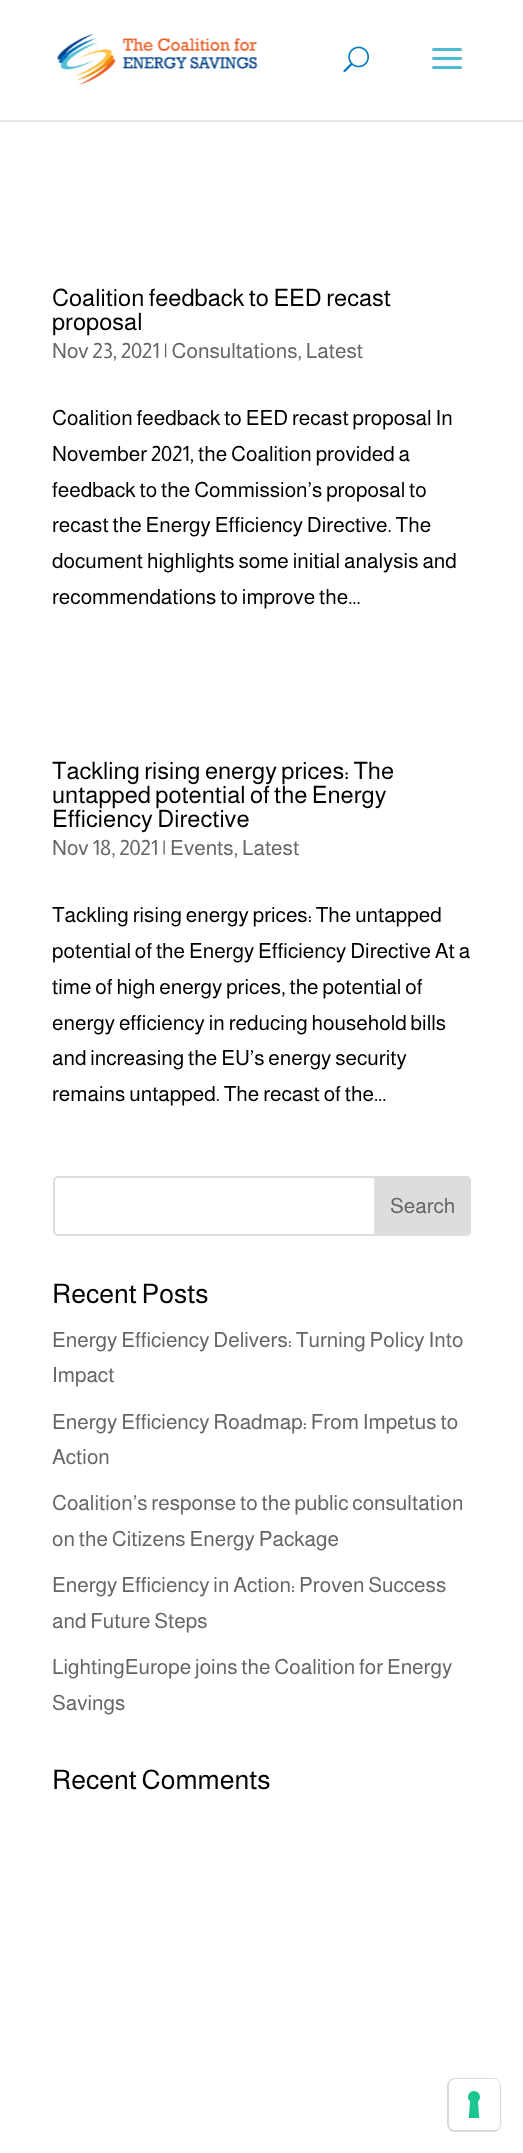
(async () => {
  const canvas = document.querySelector("canvas");
  canvas.width = 523;
  canvas.height = 2153;
  const ctx = canvas.getContext("2d");
  ctx.miterLimit = 4;
  ctx.fontKerning = "normal";
  async function loadImage(src) {
    const img = new Image();
    img.src = src;
    await img.decode();
    return img;
  }
  let path;

  ctx.fillStyle = "#ffffff";
  ctx.fillRect(0, 0, 523, 2153);
  ctx.fillStyle = "#e6e6e6";
  path = new Path2D("M0 120V122H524V2V120Z");
  ctx.fill(path);
  ctx.drawImage(await loadImage("img/1.png"), 57, 33, 201, 52);
  ctx.drawImage(await loadImage("img/2.png"), 343, 46, 26, 27);
  ctx.drawImage(await loadImage("img/3.png"), 432, 48, 30, 21);
  ctx.beginPath();
  ctx.roundRect(54, 1177, 416, 58, 4);
  ctx.strokeStyle = "#dddddd";
  ctx.lineWidth = 2;
  ctx.stroke();
  ctx.fillStyle = "#dddddd";
  ctx.beginPath();
  ctx.roundRect(375, 1177, 95, 58, [0, 4, 4, 0]);
  ctx.fill();
  ctx.stroke();
  ctx.beginPath();
  ctx.roundRect(448, 2079, 52, 52, 7);
  ctx.strokeStyle = "#d9d9d9";
  ctx.stroke();
  ctx.fillStyle = "#ffffff";
  ctx.beginPath();
  ctx.roundRect(449, 2079, 51, 51, 6);
  ctx.fill();
  ctx.drawImage(await loadImage("img/4.png"), 468, 2091, 12, 27);
  ctx.font = "24px Almarai";
  ctx.fillStyle = "#000000";
  ctx.fillText("Coalition feedback to EED recast", 52, 306);
  ctx.fillText("proposal", 52, 330);
  ctx.font = "21px Almarai";
  ctx.fillStyle = "#666666";
  ctx.fillText("Nov 23, 2021 | Consultations, Latest", 52, 358);
  ctx.fillStyle = "#000000";
  for (const [text, x, y] of [
    ["Coalition feedback to EED recast proposal In", 52, 425],
    ["November 2021, the Coalition provided a", 52, 461],
    ["feedback to the Commission’s proposal to", 52, 497],
    ["recast the Energy Efficiency Directive. The", 52, 532],
    ["document highlights some initial analysis and", 52, 568],
    ["recommendations to improve the...", 52, 604],
  ]) {
    ctx.fillText(text, x, y);
  }
  ctx.font = "24px Almarai";
  for (const [text, x, y] of [
    ["Tackling rising energy prices: The", 52, 779],
    ["untapped potential of the Energy", 52, 803],
    ["Efficiency Directive", 52, 827],
  ]) {
    ctx.fillText(text, x, y);
  }
  ctx.font = "21px Almarai";
  ctx.fillStyle = "#666666";
  ctx.fillText("Nov 18, 2021 | Events, Latest", 52, 855);
  ctx.fillStyle = "#000000";
  for (const [text, x, y] of [
    ["Tackling rising energy prices: The untapped", 52, 922],
    ["potential of the Energy Efficiency Directive At a", 52, 958],
    ["time of high energy prices, the potential of", 52, 994],
    ["energy efficiency in reducing household bills", 52, 1030],
    ["and increasing the EU’s energy security", 52, 1065],
    ["remains untapped. The recast of the...", 52, 1101],
  ]) {
    ctx.fillText(text, x, y);
  }
  ctx.fillStyle = "#666666";
  ctx.fillText("Search", 390, 1213);
  ctx.font = "27px Almarai";
  ctx.fillStyle = "#000000";
  ctx.fillText("Recent Posts", 52, 1303);
  ctx.font = "21px Almarai";
  ctx.fillStyle = "#666666";
  for (const [text, x, y] of [
    ["Energy Efficiency Delivers: Turning Policy Into", 52, 1347],
    ["Impact", 52, 1382],
    ["Energy Efficiency Roadmap: From Impetus to", 52, 1429],
    ["Action", 52, 1464],
    ["Coalition’s response to the public consultation", 52, 1510],
    ["on the Citizens Energy Package", 52, 1546],
    ["Energy Efficiency in Action: Proven Success", 52, 1592],
    ["and Future Steps", 52, 1628],
    ["LightingEurope joins the Coalition for Energy", 52, 1674],
    ["Savings", 52, 1710],
  ]) {
    ctx.fillText(text, x, y);
  }
  ctx.font = "27px Almarai";
  ctx.fillStyle = "#000000";
  ctx.fillText("Recent Comments", 52, 1789);
})();
